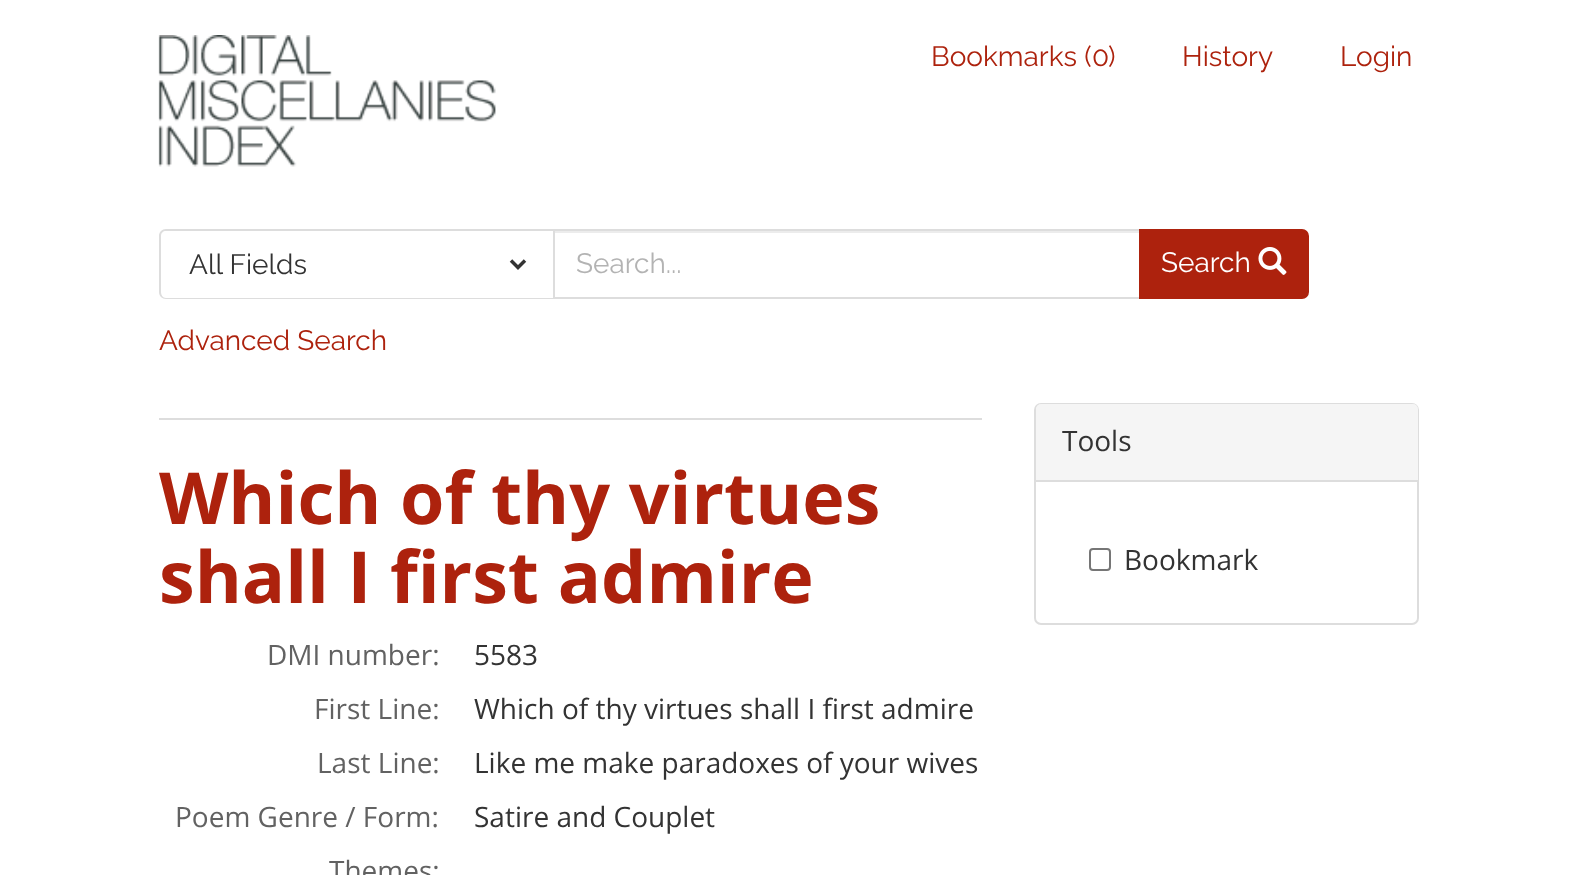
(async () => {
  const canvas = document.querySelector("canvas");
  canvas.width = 1577;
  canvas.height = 875;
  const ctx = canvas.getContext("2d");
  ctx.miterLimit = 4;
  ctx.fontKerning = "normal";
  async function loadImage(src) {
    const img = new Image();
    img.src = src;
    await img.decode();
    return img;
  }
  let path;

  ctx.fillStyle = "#ffffff";
  ctx.fillRect(0, 0, 1577, 875);
  ctx.drawImage(await loadImage("img/1.png"), 158, 35, 338, 132);
  ctx.fillStyle = "#dddddd";
  path = new Path2D("M166 229H553V299H166C162 299 159 296 159 292V236C159 232 162 229 166 229ZM166 231H553V298H166C163 298 161 295 161 292V236C161 233 163 231 166 231Z");
  ctx.fill(path, "evenodd");
  path = new Path2D("M511 260.5L518 267.5L525 260.5");
  ctx.strokeStyle = "#333333";
  ctx.lineWidth = 3.5;
  ctx.stroke(path);
  ctx.fillStyle = "#ececec";
  ctx.fillRect(555, 231, 584, 2);
  ctx.strokeStyle = "#dddddd";
  ctx.lineWidth = 2;
  ctx.strokeRect(554, 230, 586, 68);
  ctx.fillStyle = "#ad220d";
  ctx.beginPath();
  ctx.roundRect(1140, 230, 168, 68, [0, 6, 6, 0]);
  ctx.fill();
  ctx.strokeStyle = "#ad220d";
  ctx.stroke();
  ctx.drawImage(await loadImage("img/2.png"), 1258, 247, 29, 28);
  ctx.fillStyle = "#dddddd";
  ctx.fillRect(159, 418, 823, 2);
  ctx.beginPath();
  ctx.roundRect(1035, 404, 383, 220, 6);
  ctx.strokeStyle = "#dddddd";
  ctx.stroke();
  ctx.fillStyle = "#f5f5f5";
  ctx.beginPath();
  ctx.roundRect(1036, 404, 382, 77, [5, 5, 0, 0]);
  ctx.fill();
  ctx.fillStyle = "#dddddd";
  ctx.fillRect(1036, 480, 382, 2);
  ctx.beginPath();
  ctx.roundRect(1090, 549, 20, 21, 3);
  ctx.strokeStyle = "#767676";
  ctx.stroke();
  ctx.font = "28px Raleway";
  ctx.fillStyle = "#ad220d";
  for (const [text, x, y] of [
    ["Bookmarks (", 931, 66],
    ["0", 1092, 66],
    [")", 1108, 66],
    ["History", 1182, 66],
    ["Login", 1340, 66],
  ]) {
    ctx.fillText(text, x, y);
  }
  ctx.fillStyle = "#333333";
  ctx.fillText("All Fields", 189, 274);
  ctx.fillStyle = "#b3b3b3";
  ctx.fillText("Search...", 576, 273);
  ctx.fillStyle = "#ffffff";
  ctx.fillText("Search", 1161, 272);
  ctx.fillStyle = "#ad220d";
  ctx.fillText("Advanced Search", 159, 350);
  ctx.font = "bold 71.75px Open Sans";
  ctx.fillText("Which of thy virtues", 159, 524);
  ctx.fillText("shall I first admire", 159, 603);
  ctx.font = "28px Open Sans";
  ctx.fillStyle = "#626262";
  ctx.fillText("DMI number:", 267, 665);
  ctx.fillStyle = "#333333";
  ctx.fillText("5583", 474, 665);
  ctx.fillStyle = "#626262";
  ctx.fillText("First Line:", 314, 719);
  ctx.fillStyle = "#333333";
  ctx.fillText("Which of thy virtues shall I first admire", 474, 719);
  ctx.fillStyle = "#626262";
  ctx.fillText("Last Line:", 317, 773);
  ctx.fillStyle = "#333333";
  ctx.fillText("Like me make paradoxes of your wives", 474, 773);
  ctx.fillStyle = "#626262";
  ctx.fillText("Poem Genre / Form:", 175, 827);
  ctx.fillStyle = "#333333";
  ctx.fillText("Satire and Couplet", 474, 827);
  ctx.fillStyle = "#626262";
  ctx.fillText("Themes:", 329, 881);
  ctx.fillStyle = "#333333";
  ctx.fillText("Tools", 1062, 451);
  ctx.fillText("Bookmark", 1124, 570);
})();
